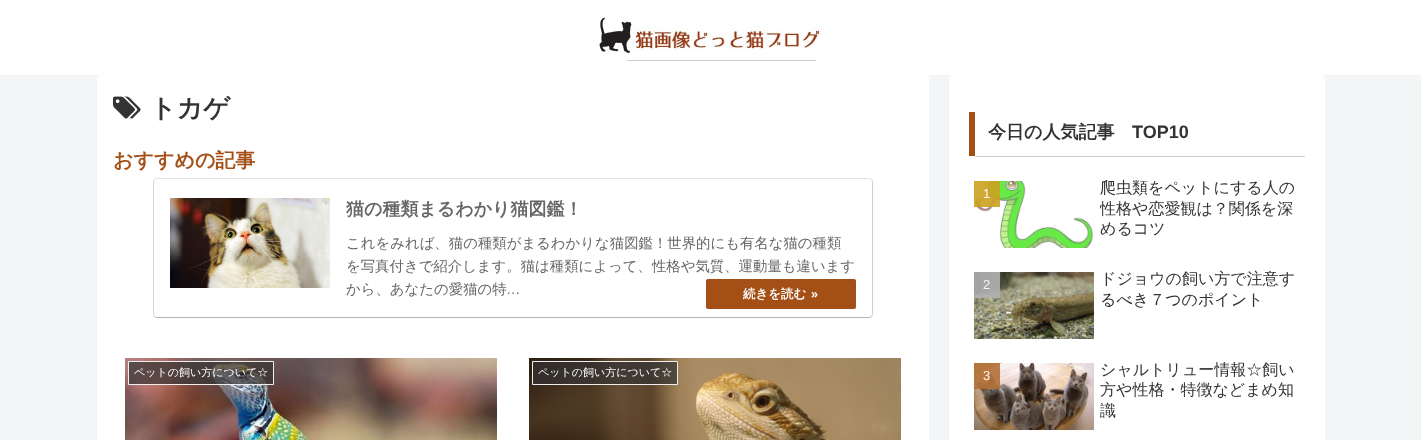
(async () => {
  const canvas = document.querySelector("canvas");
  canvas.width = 1421;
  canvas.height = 440;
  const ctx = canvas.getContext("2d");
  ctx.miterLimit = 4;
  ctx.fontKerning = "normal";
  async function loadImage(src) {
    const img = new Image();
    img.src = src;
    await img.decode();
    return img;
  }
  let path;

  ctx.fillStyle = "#f4f5f7";
  ctx.fillRect(0, 0, 1421, 440);
  ctx.fillStyle = "#ffffff";
  ctx.fillRect(0, 0, 1421, 75);
  ctx.drawImage(await loadImage("img/1.png"), 599, 17, 224, 44);
  ctx.beginPath();
  ctx.roundRect(97, 75, 832, 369, 4);
  ctx.fill();
  ctx.drawImage(await loadImage("img/2.png"), 113, 96, 28, 23);
  path = new Path2D("M154.5 179.5C155 179 156 178.5 157 178.5H869C870 178.5 871 179 871.5 179.5");
  ctx.strokeStyle = "#e3e3e3";
  ctx.stroke(path);
  path = new Path2D("M871.5 179.5C872 180 872.5 181 872.5 182V314C872.5 315 872 316 871.5 316.5");
  ctx.strokeStyle = "#cecece";
  ctx.stroke(path);
  path = new Path2D("M871.5 316.5C871 317 870 317.5 869 317.5H157C156 317.5 155 317 154.5 316.5");
  ctx.strokeStyle = "#b4b4b4";
  ctx.stroke(path);
  path = new Path2D("M154.5 316.5C154 316 153.5 315 153.5 314V182C153.5 181 154 180 154.5 179.5");
  ctx.strokeStyle = "#d6d6d6";
  ctx.stroke(path);
  ctx.drawImage(await loadImage("img/3.png"), 170, 198, 160, 90);
  ctx.fillStyle = "#a44f16";
  ctx.beginPath();
  ctx.roundRect(706, 279, 150, 30, 2);
  ctx.fill();
  ctx.drawImage(await loadImage("img/4.png"), 125, 358, 372, 82);
  ctx.fillStyle = "rgba(51, 51, 51, 0.7)";
  ctx.beginPath();
  ctx.rect(128.5, 361.5, 145, 23);
  ctx.fill();
  ctx.strokeStyle = "#eeeeee";
  ctx.stroke();
  ctx.drawImage(await loadImage("img/5.png"), 529, 358, 372, 82);
  ctx.beginPath();
  ctx.rect(532.5, 361.5, 145, 23);
  ctx.fill();
  ctx.stroke();
  ctx.fillStyle = "#ffffff";
  ctx.beginPath();
  ctx.roundRect(949, 75, 376, 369, 4);
  ctx.fill();
  ctx.fillStyle = "#a44f16";
  ctx.fillRect(969, 112, 6, 44);
  ctx.fillStyle = "#cccccc";
  ctx.fillRect(975, 156, 330, 1);
  ctx.drawImage(await loadImage("img/6.png"), 975, 181, 119, 67);
  ctx.fillStyle = "rgba(204, 161, 31, 0.9)";
  ctx.fillRect(974, 181, 26, 26);
  ctx.drawImage(await loadImage("img/7.png"), 974, 272, 120, 67);
  ctx.fillStyle = "rgba(177, 177, 179, 0.9)";
  ctx.fillRect(974, 272, 26, 26);
  ctx.drawImage(await loadImage("img/8.png"), 974, 363, 120, 67);
  ctx.fillStyle = "rgba(179, 112, 54, 0.9)";
  ctx.fillRect(974, 363, 26, 26);
  ctx.font = "bold 26px WenQuanYi Zen Hei";
  ctx.fillStyle = "#333333";
  ctx.fillText("トカゲ", 150, 117);
  ctx.font = "bold 20px WenQuanYi Zen Hei";
  ctx.fillStyle = "#a44f16";
  ctx.fillText("おすすめの記事", 113, 167);
  ctx.font = "bold 18px WenQuanYi Zen Hei";
  ctx.fillStyle = "#666666";
  ctx.fillText("猫の種類まるわかり猫図鑑！", 346, 215);
  ctx.font = "500 14.4px WenQuanYi Zen Hei";
  for (const [text, x, y] of [
    ["これをみれば、猫の種類がまるわかりな猫図鑑！世界的にも有名な猫の種類", 346, 248],
    ["を写真付きで紹介します。猫は種類によって、性格や気質、運動量も違います", 346, 271],
    ["から、あなたの愛猫の特", 346, 294],
  ]) {
    ctx.fillText(text, x, y);
  }
  ctx.font = "14.4px Liberation Sans";
  ctx.fillText("…", 506, 294);
  ctx.font = "bold 12.5px WenQuanYi Zen Hei";
  ctx.fillStyle = "#ffffff";
  ctx.fillText("続きを読む", 743, 298);
  ctx.font = "bold 12.5px Liberation Sans";
  ctx.fillText("»", 811, 298);
  ctx.font = "500 11px WenQuanYi Zen Hei";
  ctx.fillText("ペットの飼い方について☆", 134, 376);
  ctx.fillText("ペットの飼い方について☆", 538, 376);
  ctx.font = "bold 18px WenQuanYi Zen Hei";
  ctx.fillStyle = "#333333";
  ctx.fillText("今日の人気記事", 988, 138);
  ctx.font = "bold 18px Liberation Sans";
  ctx.fillText("TOP10", 1132, 138);
  ctx.font = "13px Liberation Sans";
  ctx.fillStyle = "#faf6eb";
  ctx.fillText("1", 983, 198);
  ctx.font = "500 16px WenQuanYi Zen Hei";
  ctx.fillStyle = "#333333";
  ctx.fillText("爬虫類をペットにする人の", 1100, 193);
  ctx.save();
  ctx.beginPath();
  ctx.rect(1100, 178, 200, 62);
  ctx.clip();
  ctx.fillText("性格や恋愛観は？関係を深", 1100, 214);
  ctx.restore();
  ctx.fillText("めるコツ", 1100, 234);
  ctx.font = "13px Liberation Sans";
  ctx.fillStyle = "#f6f6f6";
  ctx.fillText("2", 983, 289);
  ctx.font = "500 16px WenQuanYi Zen Hei";
  ctx.fillStyle = "#333333";
  ctx.fillText("ドジョウの飼い方で注意す", 1100, 284);
  ctx.fillText("るべき７つのポイント", 1100, 305);
  ctx.font = "13px Liberation Sans";
  ctx.fillStyle = "#faf6eb";
  ctx.fillText("3", 983, 380);
  ctx.font = "500 16px WenQuanYi Zen Hei";
  ctx.fillStyle = "#333333";
  ctx.fillText("シャルトリュー情報☆飼い", 1100, 375);
  ctx.fillText("方や性格・特徴などまめ知", 1100, 395);
  ctx.save();
  ctx.beginPath();
  ctx.rect(1100, 360, 200, 62);
  ctx.clip();
  ctx.fillText("識", 1100, 416);
  ctx.restore();
})();
